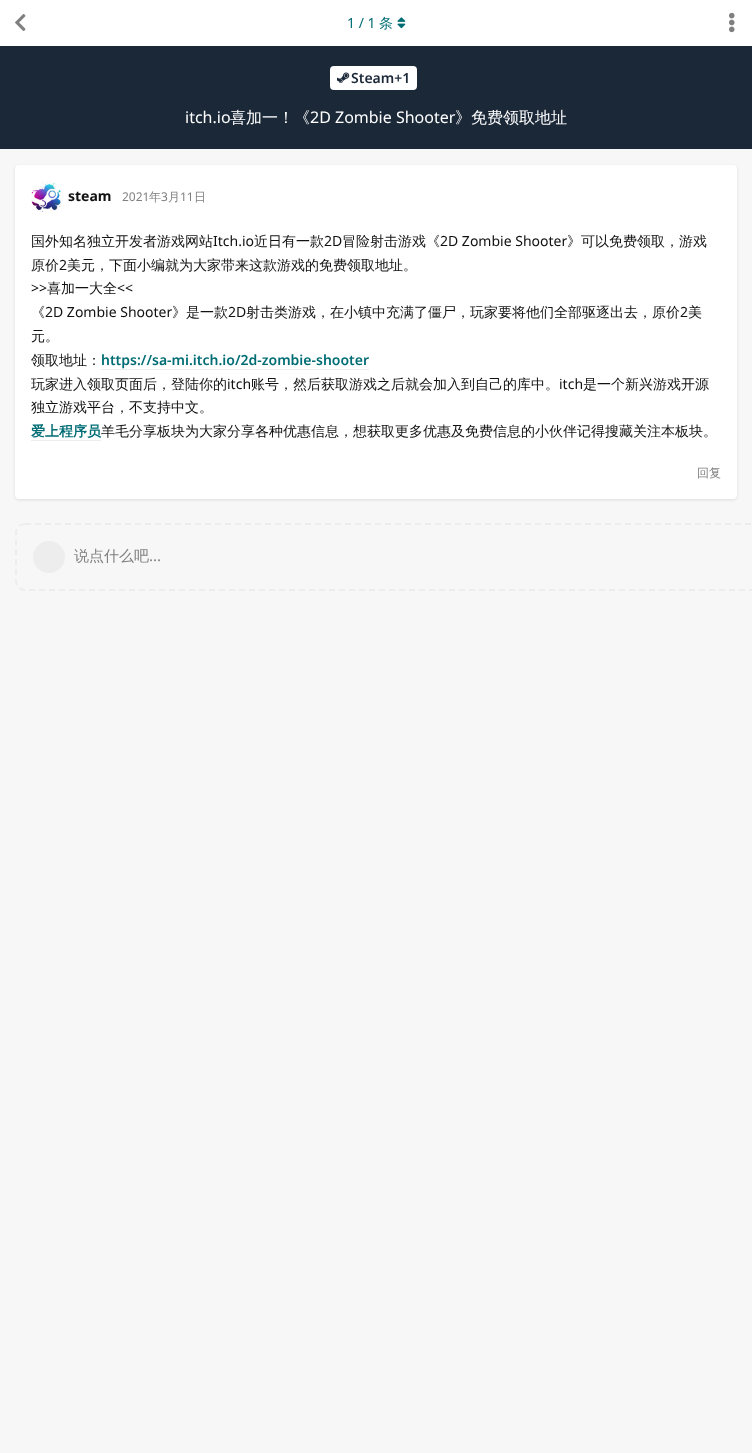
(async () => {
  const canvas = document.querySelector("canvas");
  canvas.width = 752;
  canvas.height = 1453;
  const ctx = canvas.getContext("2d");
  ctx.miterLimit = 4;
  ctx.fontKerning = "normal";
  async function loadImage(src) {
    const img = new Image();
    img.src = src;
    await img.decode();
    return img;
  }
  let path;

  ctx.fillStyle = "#f7f7f7";
  ctx.fillRect(0, 0, 752, 1453);
  ctx.fillStyle = "#ffffff";
  ctx.fillRect(0, 0, 752, 46);
  ctx.drawImage(await loadImage("img/1.png"), 15, 14, 11, 17);
  ctx.drawImage(await loadImage("img/2.png"), 397, 17, 9, 12);
  ctx.drawImage(await loadImage("img/3.png"), 729, 12, 6, 21);
  ctx.fillStyle = "rgba(0, 0, 0, 0.1)";
  ctx.filter = "blur(1.5px)";
  ctx.beginPath();
  ctx.roundRect(15, 166, 722, 334, 4);
  ctx.fill();
  ctx.filter = "none";
  ctx.fillStyle = "#ffffff";
  ctx.beginPath();
  ctx.roundRect(15, 165, 722, 334, 4);
  ctx.fill();
  ctx.fillStyle = "#ededed";
  ctx.beginPath();
  ctx.arc(47, 197, 16, 0, Math.PI * 2);
  ctx.fill();
  ctx.drawImage(await loadImage("img/4.png"), 31, 181, 32, 32);
  ctx.fillRect(101, 369, 268, 1);
  ctx.fillRect(31, 440, 70, 1);
  path = new Path2D("M25 524H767C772 524 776 528 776 533V581C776 586 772 590 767 590H25C20 590 16 586 16 581V533C16 528 20 524 25 524Z");
  ctx.strokeStyle = "#ededed";
  ctx.lineWidth = 2;
  ctx.setLineDash([6, 4]);
  ctx.stroke(path);
  ctx.beginPath();
  ctx.arc(49, 557, 16, 0, Math.PI * 2);
  ctx.fill();
  ctx.fillStyle = "#1b2838";
  ctx.fillRect(0, 46, 752, 103);
  ctx.fillStyle = "#ffffff";
  ctx.beginPath();
  ctx.roundRect(330, 66, 87, 24, 4);
  ctx.fill();
  ctx.drawImage(await loadImage("img/5.png"), 337, 72, 13, 11);
  ctx.font = "14px Noto Sans";
  ctx.fillStyle = "#006d75";
  ctx.fillText("1 / 1", 347, 28);
  ctx.font = "500 14px WenQuanYi Zen Hei";
  ctx.fillText("条", 379, 28);
  ctx.font = "bold 14px Noto Sans";
  ctx.fillStyle = "#111111";
  ctx.fillText("steam", 68, 201);
  ctx.font = "12px Noto Sans";
  ctx.fillStyle = "#808080";
  ctx.fillText("2021", 122, 201);
  ctx.font = "500 12px WenQuanYi Zen Hei";
  ctx.fillText("年", 149, 201);
  ctx.font = "12px Noto Sans";
  ctx.fillText("3", 161, 201);
  ctx.font = "500 12px WenQuanYi Zen Hei";
  ctx.fillText("月", 168, 201);
  ctx.font = "12px Noto Sans";
  ctx.fillText("11", 180, 201);
  ctx.font = "500 12px WenQuanYi Zen Hei";
  ctx.fillText("日", 194, 201);
  ctx.font = "500 14px WenQuanYi Zen Hei";
  ctx.fillStyle = "#111111";
  ctx.fillText("国外知名独立开发者游戏网站", 31, 246);
  ctx.font = "14px Noto Sans";
  ctx.fillText("Itch.io", 213, 246);
  ctx.font = "500 14px WenQuanYi Zen Hei";
  ctx.fillText("近日有一款", 254, 246);
  ctx.font = "14px Noto Sans";
  ctx.fillText("2D", 324, 246);
  ctx.font = "500 14px WenQuanYi Zen Hei";
  ctx.fillText("冒险射击游戏《", 342, 246);
  ctx.font = "14px Noto Sans";
  ctx.fillText("2D Zombie Shooter", 440, 246);
  ctx.font = "500 14px WenQuanYi Zen Hei";
  ctx.fillText("》可以免费领取，游戏", 567, 246);
  ctx.fillText("原价", 31, 270);
  ctx.font = "14px Noto Sans";
  ctx.fillText("2", 59, 270);
  ctx.font = "500 14px WenQuanYi Zen Hei";
  ctx.fillText("美元，下面小编就为大家带来这款游戏的免费领取地址。", 67, 270);
  ctx.font = "14px Noto Sans";
  ctx.fillText(">>", 31, 293);
  ctx.font = "500 14px WenQuanYi Zen Hei";
  ctx.fillText("喜加一大全", 47, 293);
  ctx.font = "14px Noto Sans";
  ctx.fillText("<<", 117, 293);
  ctx.font = "500 14px WenQuanYi Zen Hei";
  ctx.fillText("《", 31, 317);
  ctx.font = "14px Noto Sans";
  ctx.fillText("2D Zombie Shooter", 45, 317);
  ctx.font = "500 14px WenQuanYi Zen Hei";
  ctx.fillText("》是一款", 172, 317);
  ctx.font = "14px Noto Sans";
  ctx.fillText("2D", 228, 317);
  ctx.font = "500 14px WenQuanYi Zen Hei";
  ctx.fillText("射击类游戏，在小镇中充满了僵尸，玩家要将他们全部驱逐出去，原价", 246, 317);
  ctx.font = "14px Noto Sans";
  ctx.fillText("2", 680, 317);
  ctx.font = "500 14px WenQuanYi Zen Hei";
  for (const [text, x, y] of [
    ["美", 688, 317],
    ["元。", 31, 341],
    ["领取地址：", 31, 365],
  ]) {
    ctx.fillText(text, x, y);
  }
  ctx.font = "600 14px Noto Sans";
  ctx.fillStyle = "#006d75";
  ctx.fillText("https://sa-mi.itch.io/2d-zombie-shooter", 101, 365);
  ctx.font = "500 14px WenQuanYi Zen Hei";
  ctx.fillStyle = "#111111";
  ctx.fillText("玩家进入领取页面后，登陆你的", 31, 389);
  ctx.font = "14px Noto Sans";
  ctx.fillText("itch", 227, 389);
  ctx.font = "500 14px WenQuanYi Zen Hei";
  ctx.fillText("账号，然后获取游戏之后就会加入到自己的库中。", 251, 389);
  ctx.font = "14px Noto Sans";
  ctx.fillText("itch", 559, 389);
  ctx.font = "500 14px WenQuanYi Zen Hei";
  ctx.fillText("是一个新兴游戏开源", 583, 389);
  ctx.fillText("独立游戏平台，不支持中文。", 31, 412);
  ctx.font = "bold 14px WenQuanYi Zen Hei";
  ctx.fillStyle = "#006d75";
  ctx.fillText("爱上程序员", 31, 436);
  ctx.font = "500 14px WenQuanYi Zen Hei";
  ctx.fillStyle = "#111111";
  ctx.fillText("羊毛分享板块为大家分享各种优惠信息，想获取更多优惠及免费信息的小伙伴记得搜藏关注本板块。", 101, 436);
  ctx.font = "500 12px WenQuanYi Zen Hei";
  ctx.fillStyle = "#808080";
  ctx.fillText("回复", 697, 477);
  ctx.font = "500 15px WenQuanYi Zen Hei";
  ctx.fillText("说点什么吧", 74, 561);
  ctx.font = "15px Noto Sans";
  ctx.fillText("...", 149, 561);
  ctx.font = "600 14px Noto Sans";
  ctx.fillStyle = "#1b2838";
  ctx.fillText("Steam+1", 351, 83);
  ctx.font = "16px Noto Sans";
  ctx.fillStyle = "#ffffff";
  ctx.fillText("itch.io", 185, 123);
  ctx.font = "500 16px WenQuanYi Zen Hei";
  ctx.fillText("喜加一！《", 230, 123);
  ctx.font = "16px Noto Sans";
  ctx.fillText("2D Zombie Shooter", 310, 123);
  ctx.font = "500 16px WenQuanYi Zen Hei";
  ctx.fillText("》免费领取地址", 455, 123);
})();
